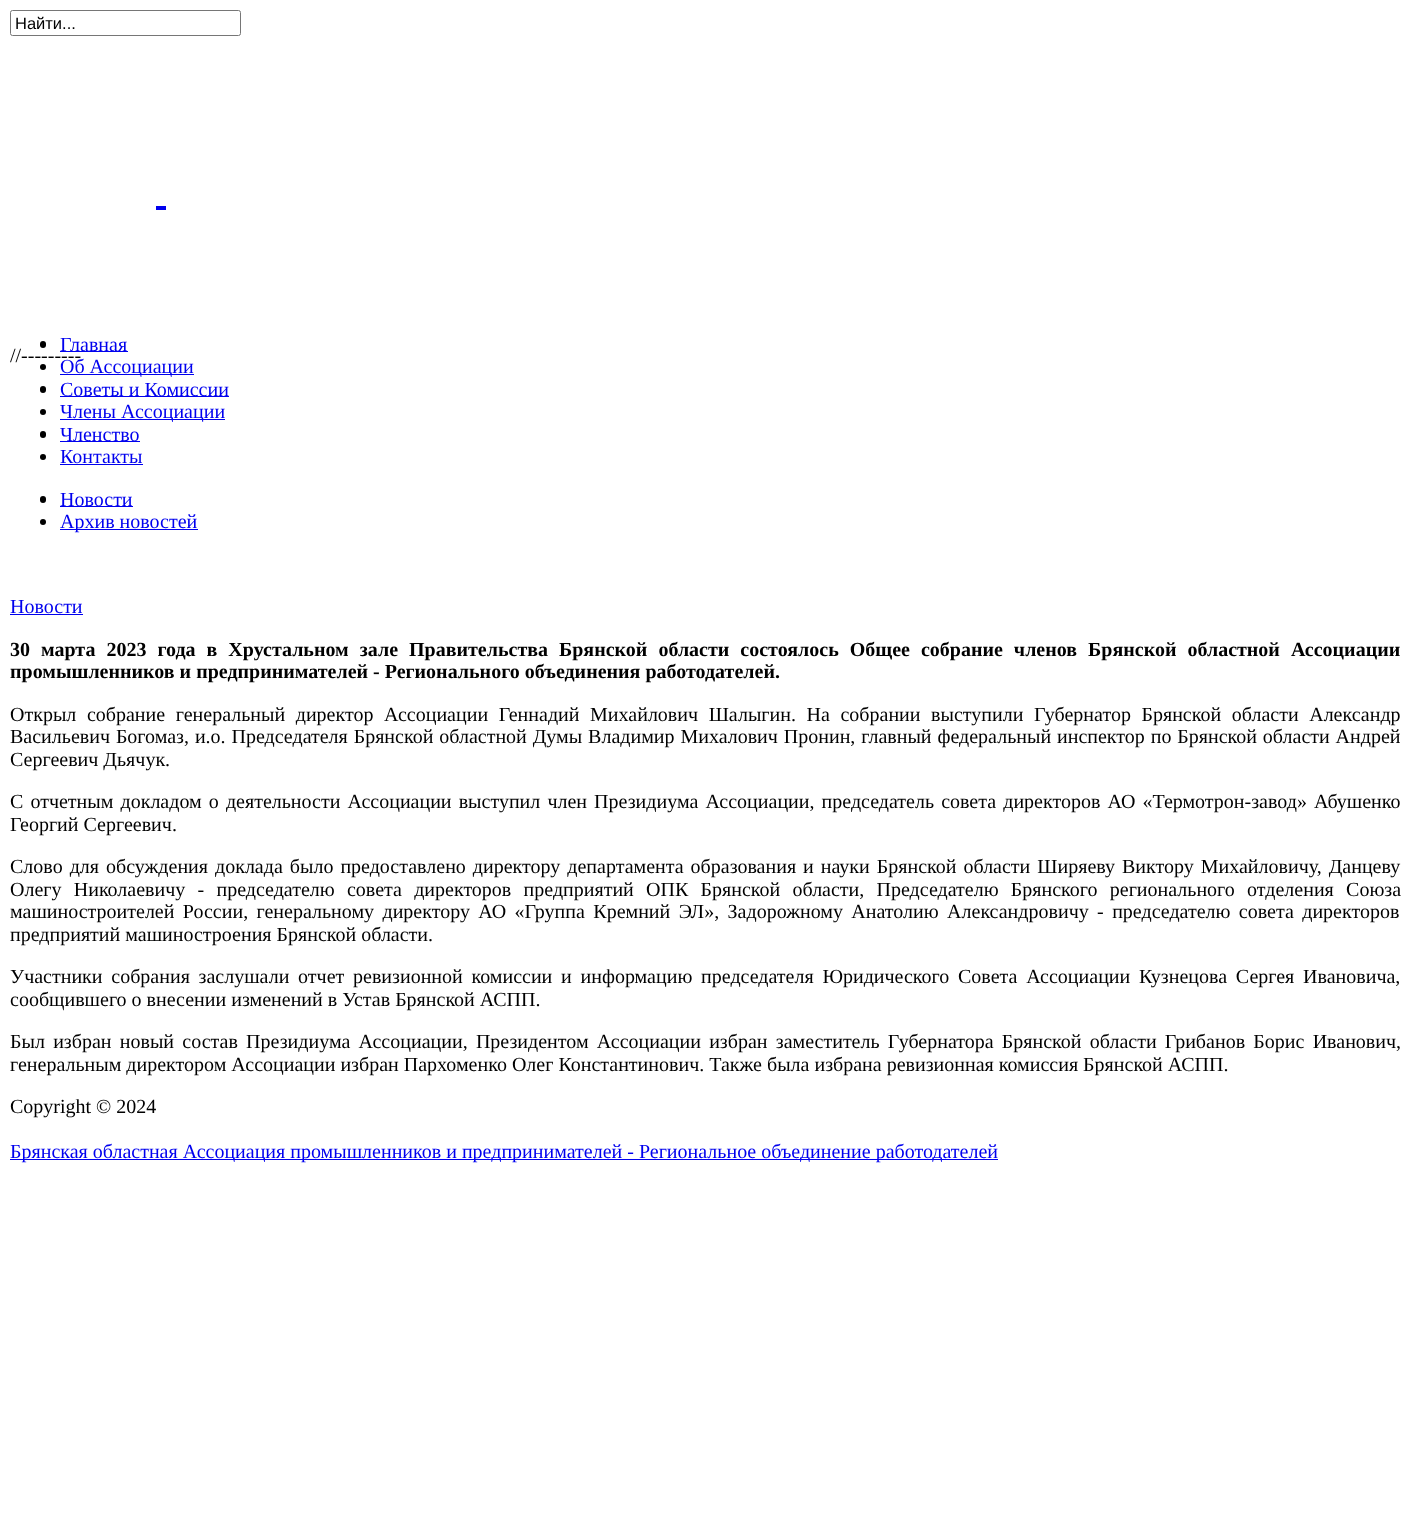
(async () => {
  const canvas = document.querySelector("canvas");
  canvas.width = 1410;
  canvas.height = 1522;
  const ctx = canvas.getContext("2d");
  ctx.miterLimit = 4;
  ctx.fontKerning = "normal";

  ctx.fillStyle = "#ffffff";
  ctx.fillRect(0, 0, 1410, 1522);
  ctx.beginPath();
  ctx.roundRect(10.5, 10.5, 230, 25, 2);
  ctx.strokeStyle = "#767676";
  ctx.stroke();
  ctx.fillStyle = "#000000";
  ctx.beginPath();
  ctx.roundRect(40, 341, 6, 7, 3);
  ctx.fill();
  ctx.beginPath();
  ctx.arc(43, 367, 3, 0, Math.PI * 2);
  ctx.fill();
  ctx.fillStyle = "#0000ee";
  ctx.fillRect(60, 374, 134, 1);
  ctx.fillStyle = "#000000";
  ctx.beginPath();
  ctx.roundRect(40, 386, 6, 7, 3);
  ctx.fill();
  ctx.fillStyle = "#0000ee";
  ctx.fillRect(60, 396, 169, 1);
  ctx.fillStyle = "#000000";
  ctx.beginPath();
  ctx.arc(43, 412, 3, 0, Math.PI * 2);
  ctx.fill();
  ctx.fillStyle = "#0000ee";
  ctx.fillRect(60, 419, 165, 1);
  ctx.fillStyle = "#000000";
  ctx.beginPath();
  ctx.roundRect(40, 431, 6, 7, 3);
  ctx.fill();
  ctx.fillStyle = "#0000ee";
  ctx.fillRect(60, 441, 80, 1);
  ctx.fillStyle = "#000000";
  ctx.beginPath();
  ctx.arc(43, 457, 3, 0, Math.PI * 2);
  ctx.fill();
  ctx.fillStyle = "#0000ee";
  ctx.fillRect(60, 464, 83, 1);
  ctx.fillStyle = "#000000";
  ctx.beginPath();
  ctx.roundRect(40, 496, 6, 7, 3);
  ctx.fill();
  ctx.fillStyle = "#0000ee";
  ctx.fillRect(60, 506, 73, 1);
  ctx.fillStyle = "#000000";
  ctx.beginPath();
  ctx.arc(43, 522, 3, 0, Math.PI * 2);
  ctx.fill();
  for (const [x, y, w, h, color] of [
    [60, 529, 138, 1, "#0000ee"],
    [10, 614, 73, 1, "#0000ee"],
    [156, 206, 10, 4, "#0000ee"],
    [10, 1159, 988, 1, "#0000ee"],
  ]) {
    ctx.fillStyle = color;
    ctx.fillRect(x, y, w, h);
  }
  ctx.font = "16.5px Liberation Sans";
  ctx.fillStyle = "#000000";
  ctx.fillText("Найти...", 15, 29);
  ctx.font = "20px Liberation Serif";
  ctx.fillStyle = "#0000ee";
  for (const [text, x, y] of [
    ["Об Ассоциации", 60, 373],
    ["Советы и Комиссии", 60, 396],
    ["Члены Ассоциации", 60, 418],
    ["Членство", 60, 441],
    ["Контакты", 60, 463],
    ["Новости", 60, 506],
    ["Архив новостей", 60, 528],
    ["Новости", 10, 613],
  ]) {
    ctx.fillText(text, x, y);
  }
  ctx.wordSpacing = "6px";
  ctx.font = "bold 20px Liberation Serif";
  ctx.fillStyle = "#000000";
  ctx.fillText("30 марта 2023 года в Хрустальном зале Правительства Брянской области состоялось Общее собрание членов Брянской областной Ассоциации", 10, 656);
  ctx.wordSpacing = "0px";
  ctx.fillText("промышленников и предпринимателей - Регионального объединения работодателей.", 10, 678);
  ctx.wordSpacing = "5.6px";
  ctx.font = "20px Liberation Serif";
  ctx.fillText("Открыл собрание генеральный директор Ассоциации Геннадий Михайлович Шалыгин. На собрании выступили Губернатор Брянской области Александр", 10, 721);
  ctx.wordSpacing = "0.9px";
  ctx.fillText("Васильевич Богомаз, и.о. Председателя Брянской областной Думы Владимир Михалович Пронин, главный федеральный инспектор по Брянской области Андрей", 10, 743);
  ctx.wordSpacing = "0px";
  ctx.fillText("Сергеевич Дьячук.", 10, 766);
  ctx.wordSpacing = "2.1px";
  ctx.fillText("С отчетным докладом о деятельности Ассоциации выступил член Президиума Ассоциации, председатель совета директоров АО «Термотрон-завод» Абушенко", 10, 808);
  ctx.wordSpacing = "0px";
  ctx.fillText("Георгий Сергеевич.", 10, 831);
  ctx.wordSpacing = "2px";
  ctx.fillText("Слово для обсуждения доклада было предоставлено директору департамента образования и науки Брянской области Ширяеву", 10, 873);
  ctx.fillText("Виктору Михайловичу, Данцеву", 1122, 873);
  ctx.wordSpacing = "7.25px";
  ctx.fillText("Олегу Николаевичу - председателю совета директоров предприятий ОПК Брянской области, Председателю Брянского регионального отделения Союза", 10, 896);
  ctx.wordSpacing = "3.4px";
  ctx.fillText("машиностроителей России, генеральному директору АО «Группа Кремний ЭЛ», Задорожному Анатолию Александровичу - председателю совета директоров", 10, 918);
  ctx.wordSpacing = "0px";
  ctx.fillText("предприятий машиностроения Брянской области.", 10, 941);
  ctx.wordSpacing = "3.75px";
  ctx.fillText("Участники собрания заслушали отчет ревизионной комиссии и информацию председателя Юридического Совета Ассоциации Кузнецова Сергея Ивановича,", 10, 983);
  ctx.wordSpacing = "0px";
  ctx.fillText("сообщившего о внесении изменений в Устав Брянской АСПП.", 10, 1006);
  ctx.wordSpacing = "3.25px";
  ctx.fillText("Был избран новый состав Президиума Ассоциации, Президентом Ассоциации избран заместитель Губернатора Брянской области Грибанов Борис Иванович,", 10, 1048);
  ctx.wordSpacing = "0px";
  ctx.fillText("генеральным директором Ассоциации избран Пархоменко Олег Константинович. Также была избрана ревизионная комиссия Брянской АСПП.", 10, 1071);
  ctx.fillText("//---------", 10, 362);
  ctx.fillStyle = "#0000ee";
  ctx.fillRect(60, 351, 68, 1);
  ctx.fillText("Главная", 60, 351);
  ctx.fillStyle = "#000000";
  ctx.fillText("Copyright © 2024", 10, 1113);
  ctx.fillStyle = "#0000ee";
  ctx.fillText("Брянская областная Ассоциация промышленников и предпринимателей - Региональное объединение работодателей", 10, 1158);
})();
